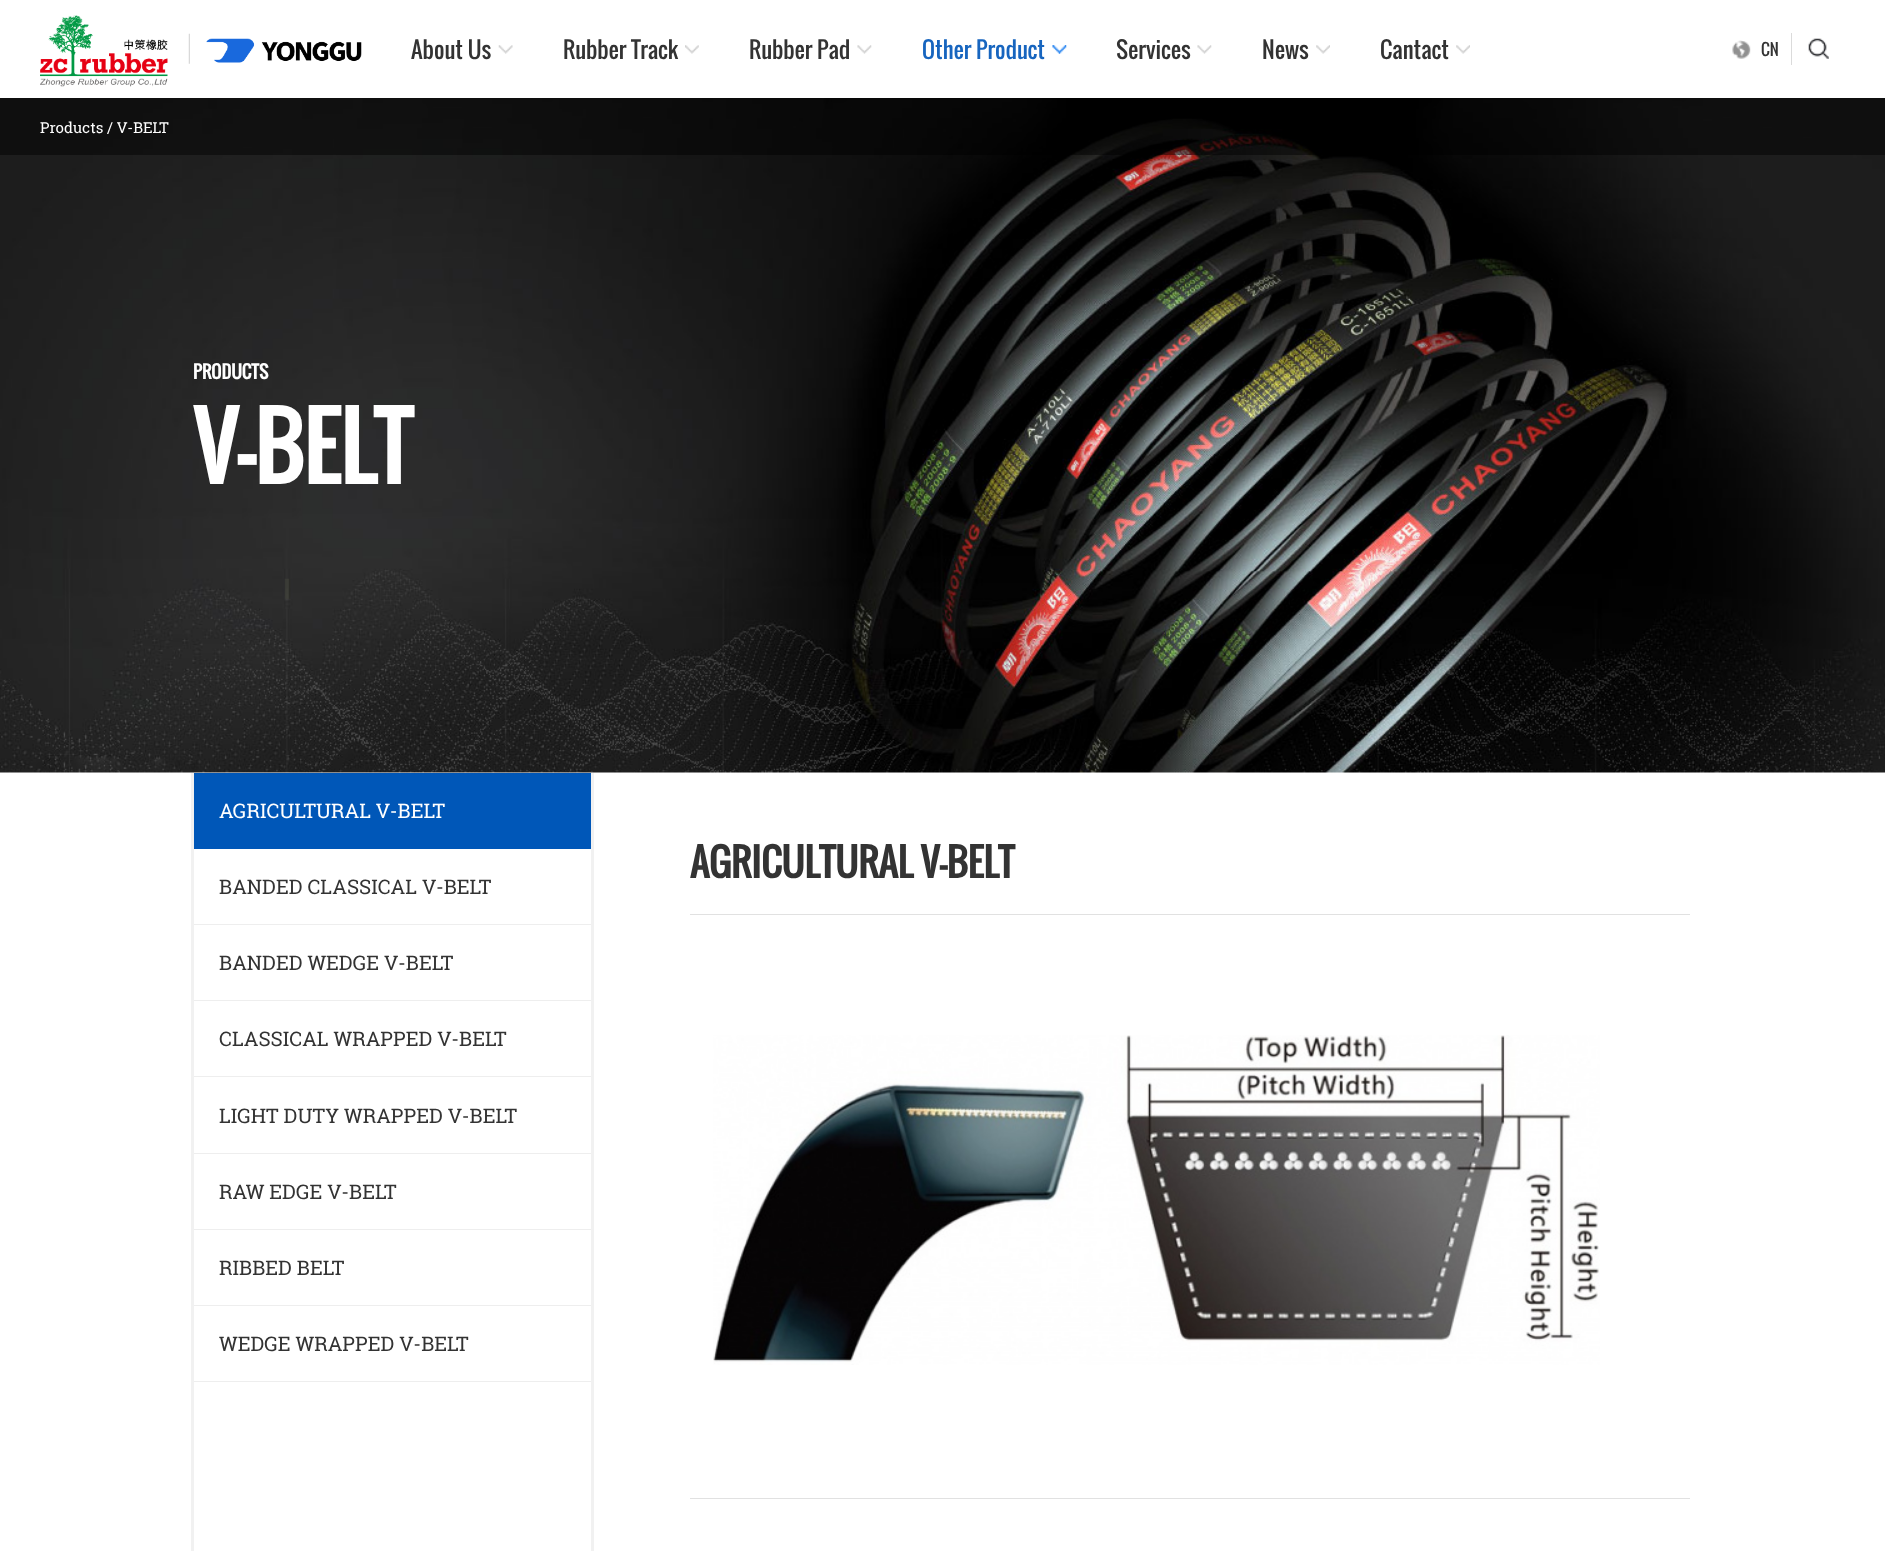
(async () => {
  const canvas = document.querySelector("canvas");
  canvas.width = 1885;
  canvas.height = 1551;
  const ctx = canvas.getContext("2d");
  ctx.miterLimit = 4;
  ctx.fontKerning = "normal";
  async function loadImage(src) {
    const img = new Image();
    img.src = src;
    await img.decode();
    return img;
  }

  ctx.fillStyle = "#ffffff";
  ctx.fillRect(0, 0, 1885, 1551);
  ctx.drawImage(await loadImage("img/1.png"), 40, 15, 128, 72);
  ctx.drawImage(await loadImage("img/2.png"), 188, 33, 2, 31);
  ctx.drawImage(await loadImage("img/3.png"), 206, 38, 156, 25);
  ctx.drawImage(await loadImage("img/4.png"), 498, 45, 15, 9);
  ctx.drawImage(await loadImage("img/5.png"), 685, 45, 14, 9);
  ctx.drawImage(await loadImage("img/6.png"), 857, 45, 15, 9);
  ctx.drawImage(await loadImage("img/7.png"), 1052, 45, 15, 9);
  ctx.drawImage(await loadImage("img/6.png"), 1197, 45, 15, 9);
  ctx.drawImage(await loadImage("img/8.png"), 1316, 45, 14, 9);
  ctx.drawImage(await loadImage("img/8.png"), 1456, 45, 14, 9);
  ctx.drawImage(await loadImage("img/9.png"), 1732, 40, 19, 19);
  ctx.drawImage(await loadImage("img/10.png"), 1808, 38, 21, 21);
  ctx.fillStyle = "#dbdbdb";
  ctx.fillRect(1791, 33, 1, 32);
  ctx.drawImage(await loadImage("img/11.png"), 0, 98, 1885, 675);
  for (const [x, y, w, h, color] of [
    [0, 98, 1885, 57, "rgba(0, 0, 0, 0.45)"],
    [191, 773, 3, 778, "#f1f1f1"],
    [194, 773, 397, 76, "#0057b8"],
    [194, 924, 397, 1, "#eeeeee"],
    [194, 1000, 397, 1, "#eeeeee"],
    [194, 1076, 397, 1, "#eeeeee"],
    [194, 1153, 397, 1, "#eeeeee"],
    [194, 1229, 397, 1, "#eeeeee"],
    [194, 1305, 397, 1, "#eeeeee"],
    [194, 1381, 397, 1, "#eeeeee"],
    [591, 773, 3, 778, "#f1f1f1"],
    [690, 914, 1000, 1, "#e1e1e1"],
  ]) {
    ctx.fillStyle = color;
    ctx.fillRect(x, y, w, h);
  }
  ctx.drawImage(await loadImage("img/12.png"), 713, 1035, 887, 330);
  ctx.fillRect(690, 1498, 1000, 1);
  ctx.font = "22.5px Oswald";
  ctx.fillStyle = "#333333";
  for (const [text, x, y] of [
    ["About Us", 411, 59],
    ["Rubber Track", 563, 59],
    ["Rubber Pad", 749, 59],
  ]) {
    ctx.fillText(text, x, y);
  }
  ctx.fillStyle = "#1765bf";
  ctx.fillText("Other Product", 922, 59);
  ctx.fillStyle = "#333333";
  for (const [text, x, y] of [
    ["Services", 1116, 59],
    ["News", 1262, 59],
    ["Cantact", 1380, 59],
  ]) {
    ctx.fillText(text, x, y);
  }
  ctx.font = "16px Oswald";
  ctx.fillText("CN", 1761, 56);
  ctx.font = "15px Roboto Slab";
  ctx.fillStyle = "#ffffff";
  ctx.fillText("Products / V-BELT", 40, 133);
  ctx.font = "bold 17.5px Oswald";
  ctx.fillText("PRODUCTS", 193, 379);
  ctx.font = "bold 87.5px Oswald";
  ctx.fillText("V-BELT", 193, 484);
  ctx.font = "20px Roboto Slab";
  ctx.fillText("AGRICULTURAL V-BELT", 219, 818);
  ctx.fillStyle = "#333333";
  for (const [text, x, y] of [
    ["BANDED CLASSICAL V-BELT", 219, 894],
    ["BANDED WEDGE V-BELT", 219, 970],
    ["CLASSICAL WRAPPED V-BELT", 219, 1046],
    ["LIGHT DUTY WRAPPED V-BELT", 219, 1123],
    ["RAW EDGE V-BELT", 219, 1199],
    ["RIBBED BELT", 219, 1275],
    ["WEDGE WRAPPED V-BELT", 219, 1351],
  ]) {
    ctx.fillText(text, x, y);
  }
  ctx.font = "bold 37.5px Oswald";
  ctx.fillText("AGRICULTURAL V-BELT", 690, 878);
})();
